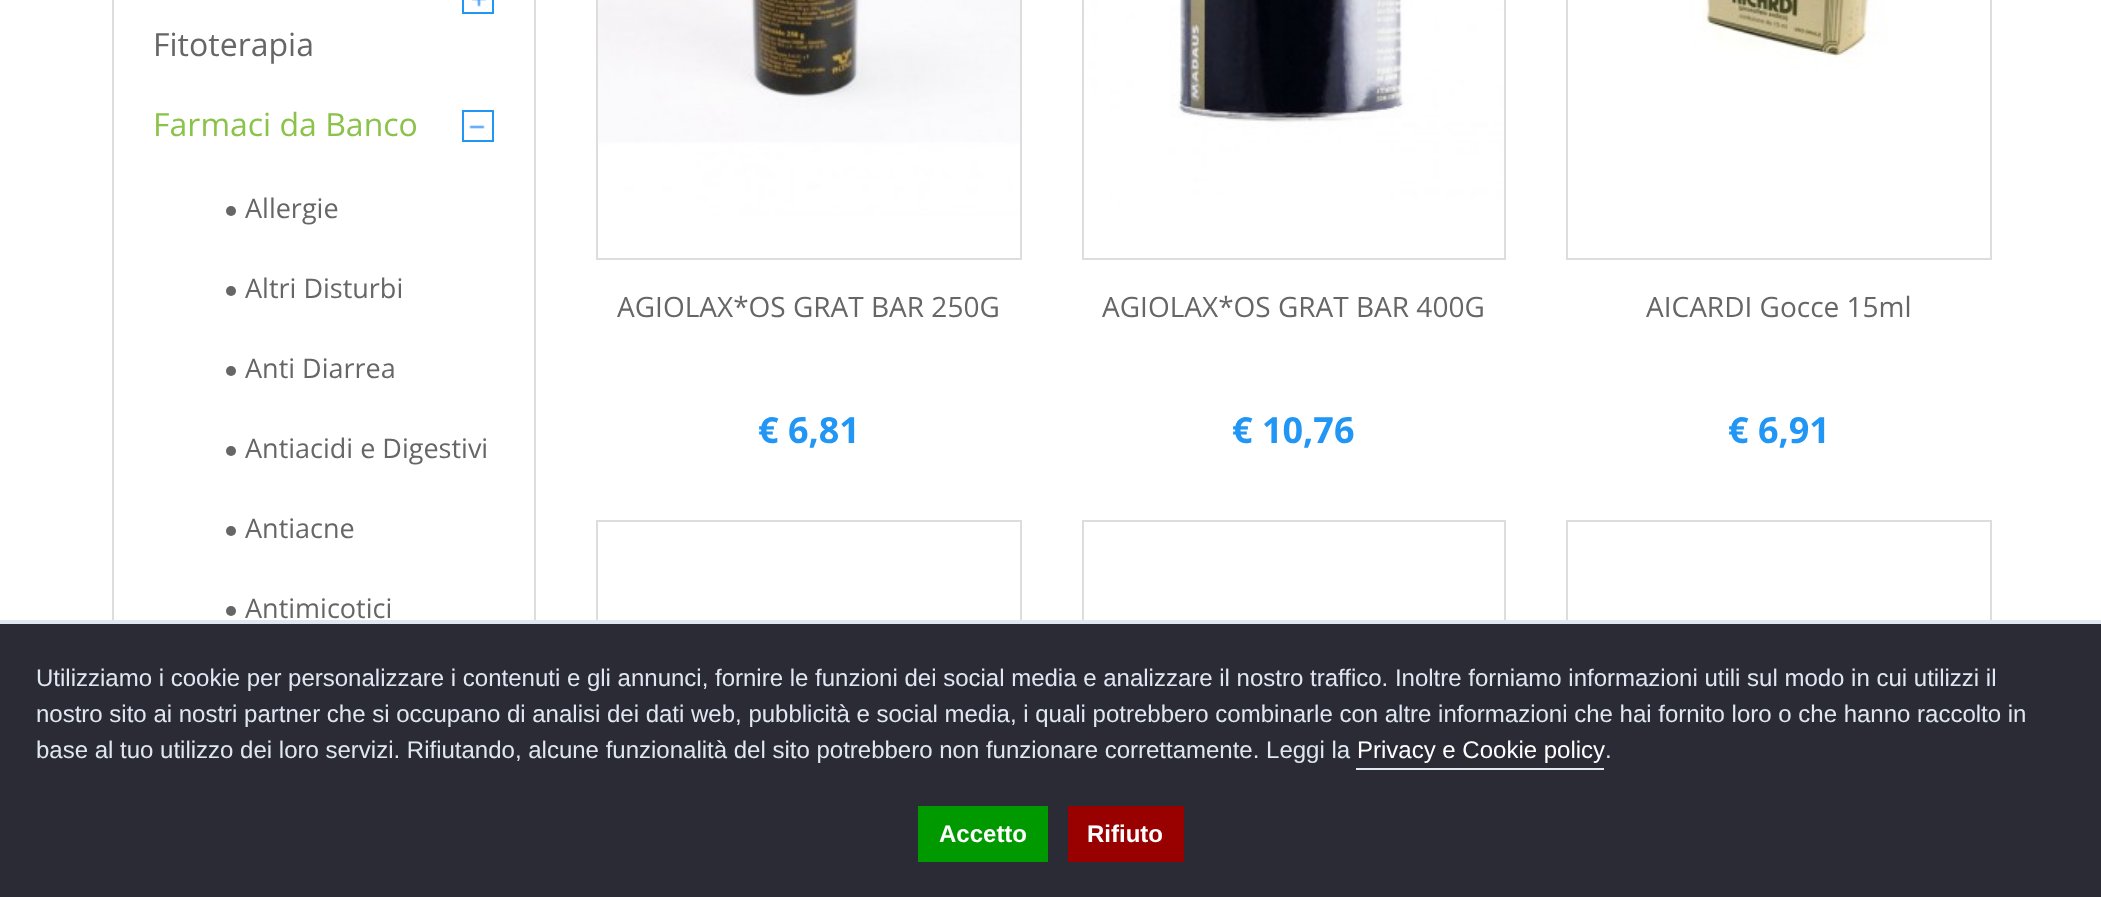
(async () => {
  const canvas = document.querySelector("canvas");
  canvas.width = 2101;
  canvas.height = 897;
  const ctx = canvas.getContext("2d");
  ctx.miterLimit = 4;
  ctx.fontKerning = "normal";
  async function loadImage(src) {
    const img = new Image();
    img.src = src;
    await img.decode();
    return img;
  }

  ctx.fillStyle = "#ffffff";
  ctx.fillRect(0, 0, 2101, 897);
  ctx.strokeStyle = "#dddddd";
  ctx.lineWidth = 2;
  ctx.strokeRect(113, -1, 422, 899);
  ctx.drawImage(await loadImage("img/1.png"), 471, 0, 16, 7);
  ctx.strokeStyle = "#2196f4";
  ctx.strokeRect(463, -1, 30, 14);
  ctx.drawImage(await loadImage("img/2.png"), 469, 125, 16, 4);
  ctx.strokeRect(463, 111, 30, 30);
  ctx.fillStyle = "#666666";
  ctx.beginPath();
  ctx.arc(231, 211, 5, 0, Math.PI * 2);
  ctx.fill();
  ctx.beginPath();
  ctx.arc(231, 291, 5, 0, Math.PI * 2);
  ctx.fill();
  ctx.beginPath();
  ctx.arc(231, 371, 5, 0, Math.PI * 2);
  ctx.fill();
  ctx.beginPath();
  ctx.arc(231, 451, 5, 0, Math.PI * 2);
  ctx.fill();
  ctx.beginPath();
  ctx.arc(231, 531, 5, 0, Math.PI * 2);
  ctx.fill();
  ctx.beginPath();
  ctx.arc(231, 611, 5, 0, Math.PI * 2);
  ctx.fill();
  ctx.strokeStyle = "#dddddd";
  ctx.strokeRect(597, -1, 424, 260);
  ctx.drawImage(await loadImage("img/3.png"), 598, 0, 422, 258);
  ctx.strokeRect(1083, -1, 422, 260);
  ctx.drawImage(await loadImage("img/4.png"), 1084, 0, 420, 258);
  ctx.strokeRect(1567, -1, 424, 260);
  ctx.drawImage(await loadImage("img/5.png"), 1568, 0, 422, 258);
  ctx.strokeRect(597, 521, 424, 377);
  ctx.drawImage(await loadImage("img/6.png"), 598, 522, 422, 98);
  ctx.strokeRect(1083, 521, 422, 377);
  ctx.drawImage(await loadImage("img/7.png"), 1084, 522, 420, 98);
  ctx.strokeRect(1567, 521, 424, 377);
  ctx.drawImage(await loadImage("img/6.png"), 1568, 522, 422, 98);
  for (const [x, y, w, h, color] of [
    [0, 624, 2101, 273, "#2a2b35"],
    [0, 620, 2101, 4, "#e0e7f0"],
    [1356, 768, 248, 2, "#e0e7f0"],
    [918, 806, 130, 56, "#009900"],
    [1068, 806, 116, 56, "#990000"],
  ]) {
    ctx.fillStyle = color;
    ctx.fillRect(x, y, w, h);
  }
  ctx.font = "32px Open Sans";
  ctx.fillStyle = "#666666";
  ctx.fillText("Fitoterapia", 153, 56);
  ctx.fillStyle = "#8bc34a";
  ctx.fillText("Farmaci da Banco", 153, 136);
  ctx.font = "27px Open Sans";
  ctx.fillStyle = "#666666";
  for (const [text, x, y] of [
    ["Allergie", 245, 218],
    ["Altri Disturbi", 245, 298],
    ["Anti Diarrea", 245, 378],
    ["Antiacidi e Digestivi", 245, 458],
    ["Antiacne", 245, 538],
    ["Antimicotici", 245, 618],
  ]) {
    ctx.fillText(text, x, y);
  }
  ctx.font = "28px Open Sans";
  ctx.fillText("AGIOLAX*OS GRAT BAR 250G", 617, 317);
  ctx.font = "bold 36px Open Sans";
  ctx.fillStyle = "#2196f4";
  ctx.fillText("€ 6,81", 758, 443);
  ctx.font = "28px Open Sans";
  ctx.fillStyle = "#666666";
  ctx.fillText("AGIOLAX*OS GRAT BAR 400G", 1102, 317);
  ctx.font = "bold 36px Open Sans";
  ctx.fillStyle = "#2196f4";
  ctx.fillText("€ 10,76", 1232, 443);
  ctx.font = "28px Open Sans";
  ctx.fillStyle = "#666666";
  ctx.fillText("AICARDI Gocce 15ml", 1646, 317);
  ctx.font = "bold 36px Open Sans";
  ctx.fillStyle = "#2196f4";
  ctx.fillText("€ 6,91", 1728, 443);
  ctx.font = "24px Liberation Sans";
  ctx.fillStyle = "#e0e7f0";
  for (const [text, x, y] of [
    ["Utilizziamo i cookie per personalizzare i contenuti e gli annunci, fornire le funzioni dei social media e analizzare il nostro traffico. Inoltre forniamo informazioni utili sul modo in cui utilizzi il", 36, 686],
    ["nostro sito ai nostri partner che si occupano di analisi dei dati web, pubblicità e social media, i quali potrebbero combinarle con altre informazioni che hai fornito loro o che hanno raccolto in", 36, 722],
    ["base al tuo utilizzo dei loro servizi. Rifiutando, alcune funzionalità del sito potrebbero non funzionare correttamente. Leggi la", 36, 758],
  ]) {
    ctx.fillText(text, x, y);
  }
  ctx.fillStyle = "#ffffff";
  ctx.fillText("Privacy e Cookie policy", 1357, 758);
  ctx.fillStyle = "#e0e7f0";
  ctx.fillText(".", 1605, 758);
  ctx.font = "bold 24px Liberation Sans";
  ctx.fillStyle = "#ffffff";
  ctx.fillText("Accetto", 939, 842);
  ctx.fillText("Rifiuto", 1087, 842);
})();
